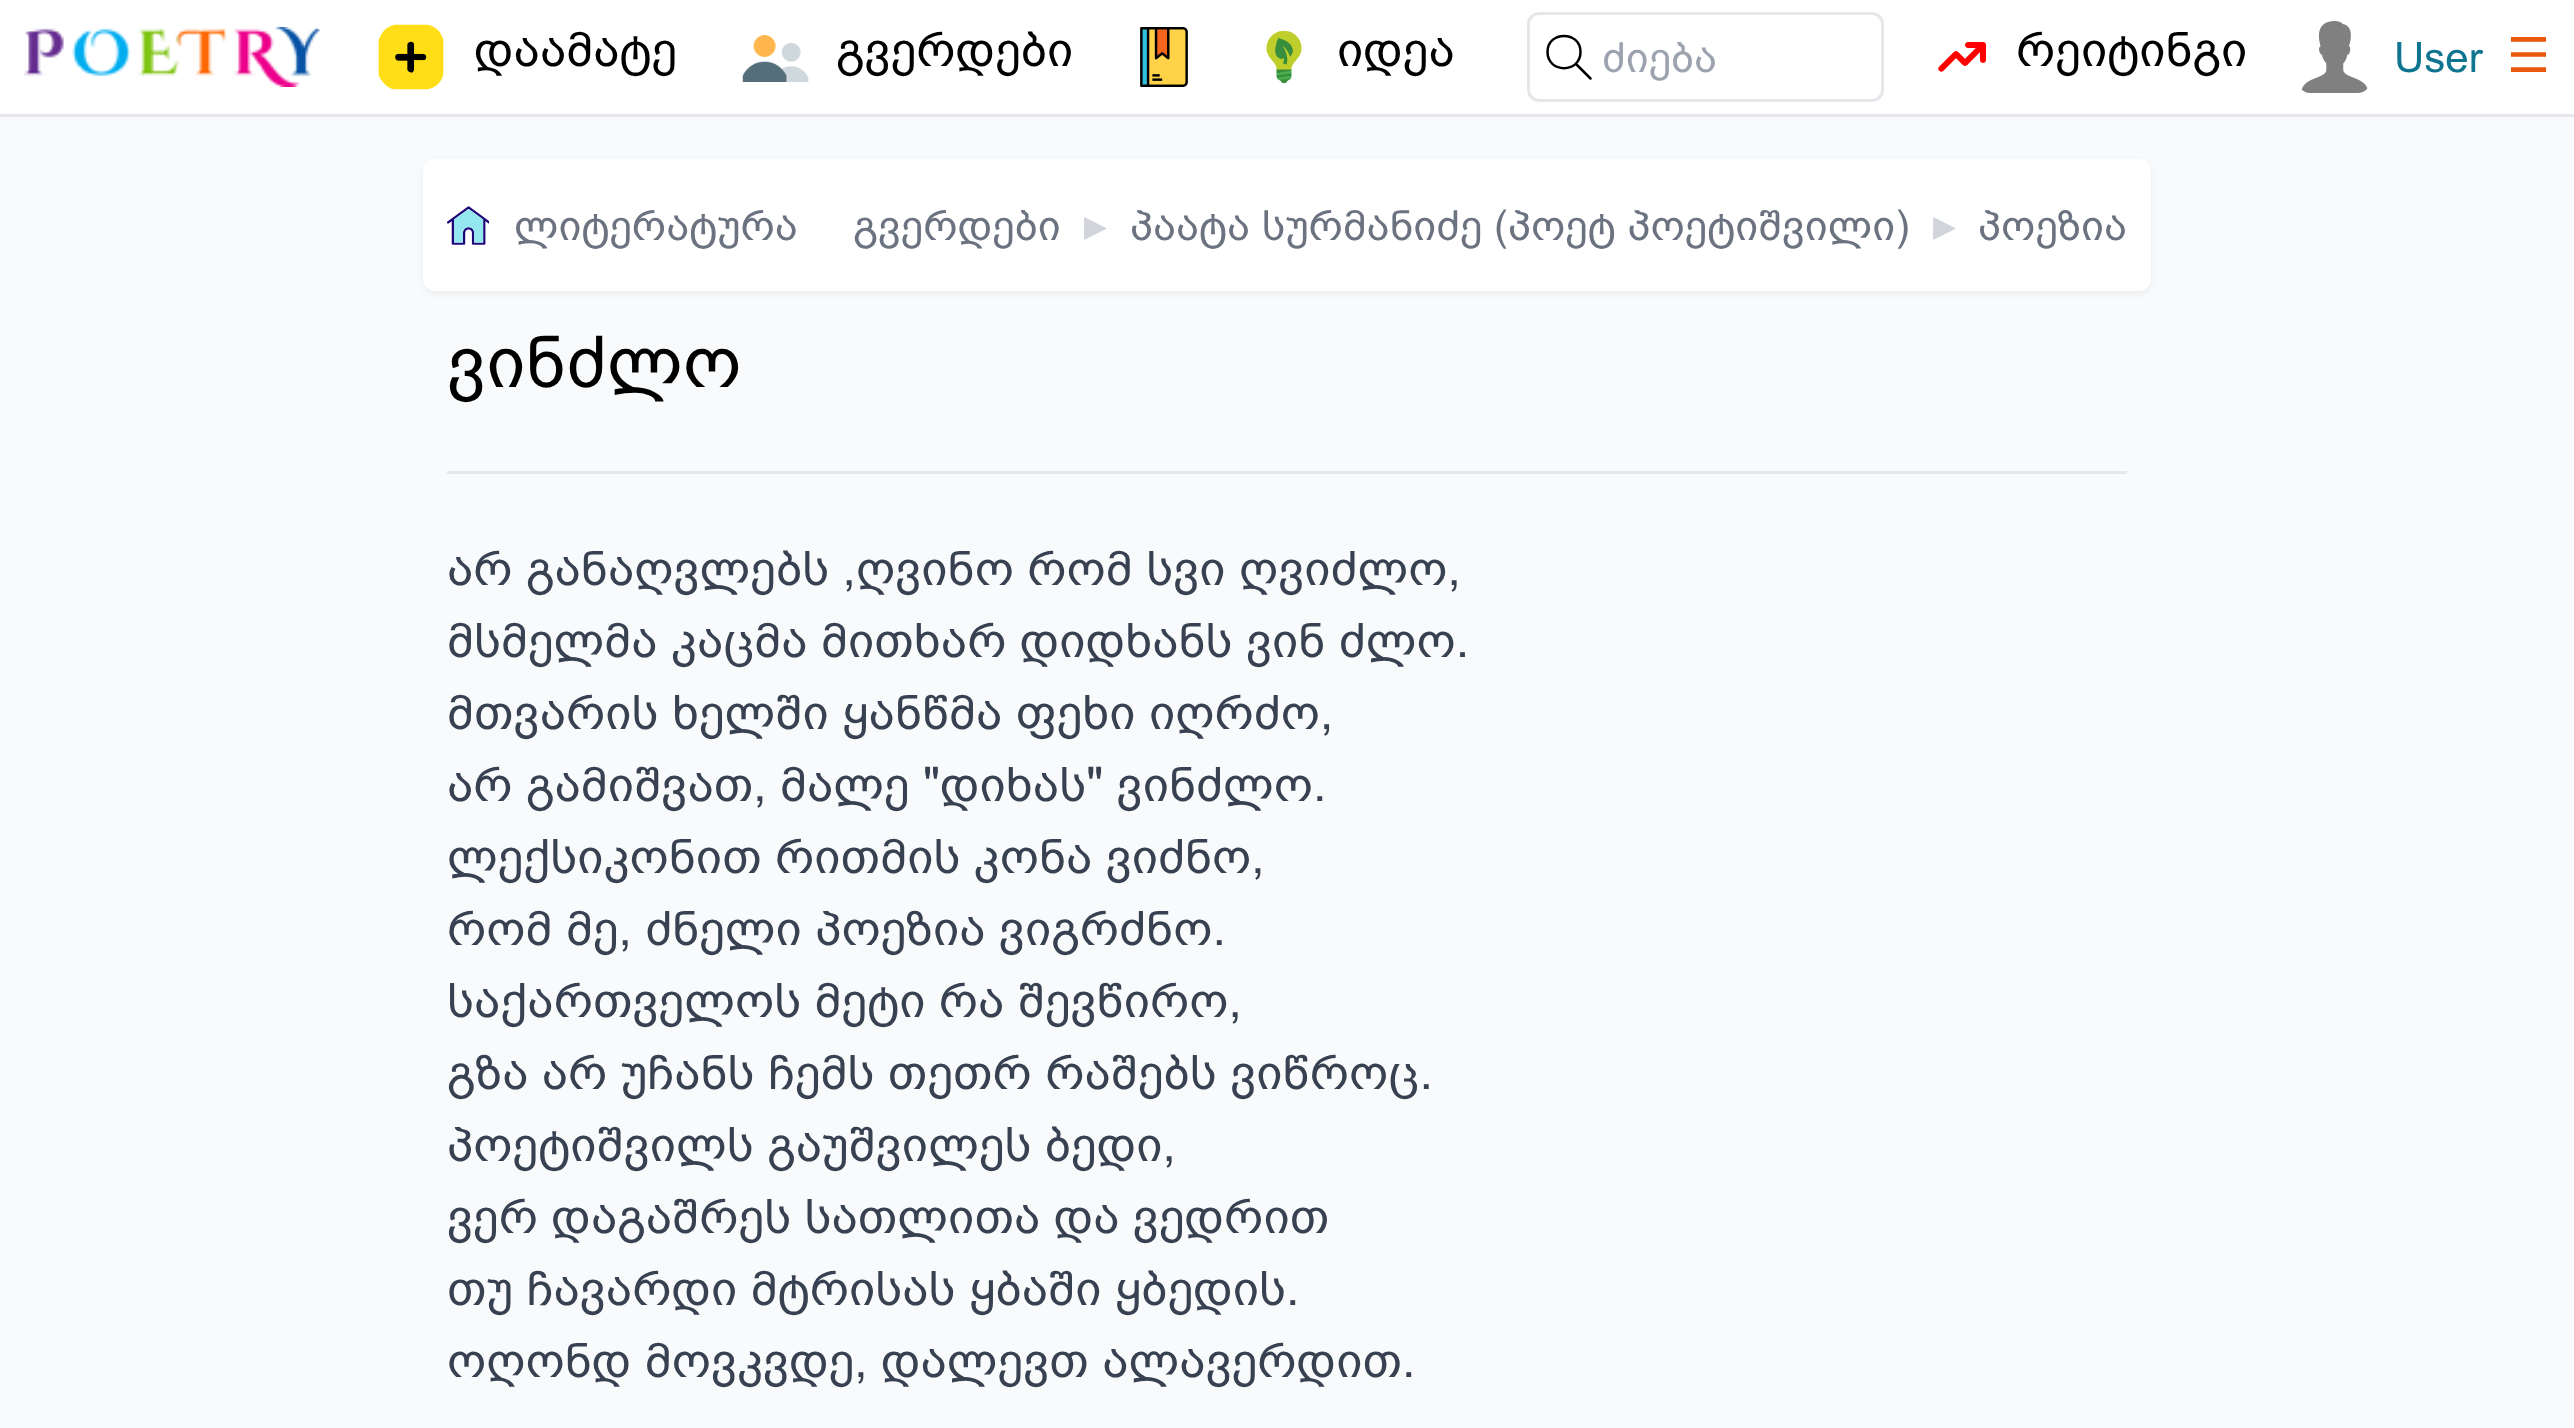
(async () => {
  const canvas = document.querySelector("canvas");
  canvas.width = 2574;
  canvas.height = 1428;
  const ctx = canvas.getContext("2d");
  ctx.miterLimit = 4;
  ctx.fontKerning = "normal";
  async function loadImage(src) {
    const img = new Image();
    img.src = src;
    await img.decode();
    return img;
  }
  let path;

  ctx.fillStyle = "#f9fafb";
  ctx.fillRect(0, 0, 2574, 1428);
  ctx.fillStyle = "#ffffff";
  ctx.fillRect(0, 0, 2574, 114);
  ctx.fillStyle = "#e5e7eb";
  ctx.fillRect(0, 114, 2574, 3);
  ctx.drawImage(await loadImage("img/1.png"), 24, 27, 297, 60);
  ctx.drawImage(await loadImage("img/2.png"), 378, 24, 66, 66);
  ctx.drawImage(await loadImage("img/3.png"), 742, 35, 67, 47);
  ctx.drawImage(await loadImage("img/4.png"), 1140, 27, 48, 60);
  ctx.drawImage(await loadImage("img/5.png"), 1266, 30, 36, 54);
  ctx.beginPath();
  ctx.roundRect(1528.5, 13.5, 354, 87, 10.5);
  ctx.strokeStyle = "#e5e7eb";
  ctx.lineWidth = 3;
  ctx.stroke();
  path = new Path2D("M1580.5 52C1580.5 73.5 1547.5 73.5 1547.5 52C1547.5 30.5 1580.5 30.5 1580.5 52ZM1576 64L1590.5 78.5");
  ctx.strokeStyle = "#000000";
  ctx.lineWidth = 2.5;
  ctx.lineCap = "round";
  ctx.lineJoin = "round";
  ctx.stroke(path);
  ctx.drawImage(await loadImage("img/6.png"), 1938, 42, 48, 30);
  ctx.drawImage(await loadImage("img/7.png"), 2301, 21, 67, 72);
  ctx.fillStyle = "rgba(0, 0, 0, 0.05)";
  ctx.filter = "blur(3px)";
  ctx.beginPath();
  ctx.roundRect(423, 162, 1728, 132, 12);
  ctx.fill();
  ctx.filter = "none";
  ctx.fillStyle = "#ffffff";
  ctx.beginPath();
  ctx.roundRect(423, 159, 1728, 132, 12);
  ctx.fill();
  ctx.drawImage(await loadImage("img/8.png"), 447, 206, 42, 39);
  ctx.fillStyle = "#e5e7eb";
  ctx.fillRect(447, 471, 1680, 3);
  ctx.font = "48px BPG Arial";
  ctx.fillStyle = "#000000";
  for (const [text, x, y] of [
    ["დაამატე", 474, 66],
    ["გვერდები", 836, 66],
    ["იდეა", 1337, 66],
  ]) {
    ctx.fillText(text, x, y);
  }
  ctx.font = "42px BPG Arial";
  ctx.fillStyle = "#9ca3af";
  ctx.fillText("ძიება", 1602, 72);
  ctx.font = "48px BPG Arial";
  ctx.fillStyle = "#000000";
  ctx.fillText("რეიტინგი", 2016, 66);
  ctx.font = "42px BPG Arial";
  ctx.fillStyle = "#0e7490";
  ctx.fillText("User", 2394, 72);
  ctx.font = "48px DejaVu Sans";
  ctx.fillStyle = "#ea580c";
  ctx.fillText("☰", 2507, 72);
  ctx.font = "42px BPG Arial";
  ctx.fillStyle = "#6b7280";
  ctx.fillText("ლიტერატურა", 514, 240);
  ctx.fillText("გვერდები", 853, 240);
  ctx.font = "bold 42px DejaVu Sans";
  ctx.fillStyle = "#d1d5db";
  ctx.fillText("▸", 1084, 240);
  ctx.font = "42px BPG Arial";
  ctx.fillStyle = "#6b7280";
  ctx.fillText("პაატა სურმანიძე (პოეტ პოეტიშვილი)", 1130, 240);
  ctx.font = "bold 42px DejaVu Sans";
  ctx.fillStyle = "#d1d5db";
  ctx.fillText("▸", 1933, 240);
  ctx.font = "42px BPG Arial";
  ctx.fillStyle = "#6b7280";
  ctx.fillText("პოეზია", 1978, 240);
  ctx.font = "72px BPG Arial";
  ctx.fillStyle = "#000000";
  ctx.fillText("ვინძლო", 447, 387);
  ctx.font = "48px BPG Arial";
  ctx.fillStyle = "#374151";
  for (const [text, x, y] of [
    ["არ განაღვლებს ,ღვინო რომ სვი ღვიძლო,", 447, 585],
    ["მსმელმა კაცმა მითხარ დიდხანს ვინ ძლო.", 447, 657],
    ["მთვარის ხელში ყანწმა ფეხი იღრძო,", 447, 729],
    ["არ გამიშვათ, მალე \"დიხას\" ვინძლო.", 447, 801],
    ["ლექსიკონით რითმის კონა ვიძნო,", 447, 873],
    ["რომ მე, ძნელი პოეზია ვიგრძნო.", 447, 945],
    ["საქართველოს მეტი რა შევწირო,", 447, 1017],
    ["გზა არ უჩანს ჩემს თეთრ რაშებს ვიწროც.", 447, 1089],
    ["პოეტიშვილს გაუშვილეს ბედი,", 447, 1161],
    ["ვერ დაგაშრეს სათლითა და ვედრით", 447, 1233],
    ["თუ ჩავარდი მტრისას ყბაში ყბედის.", 447, 1305],
    ["ოღონდ მოვკვდე, დალევთ ალავერდით.", 447, 1377],
  ]) {
    ctx.fillText(text, x, y);
  }
})();
